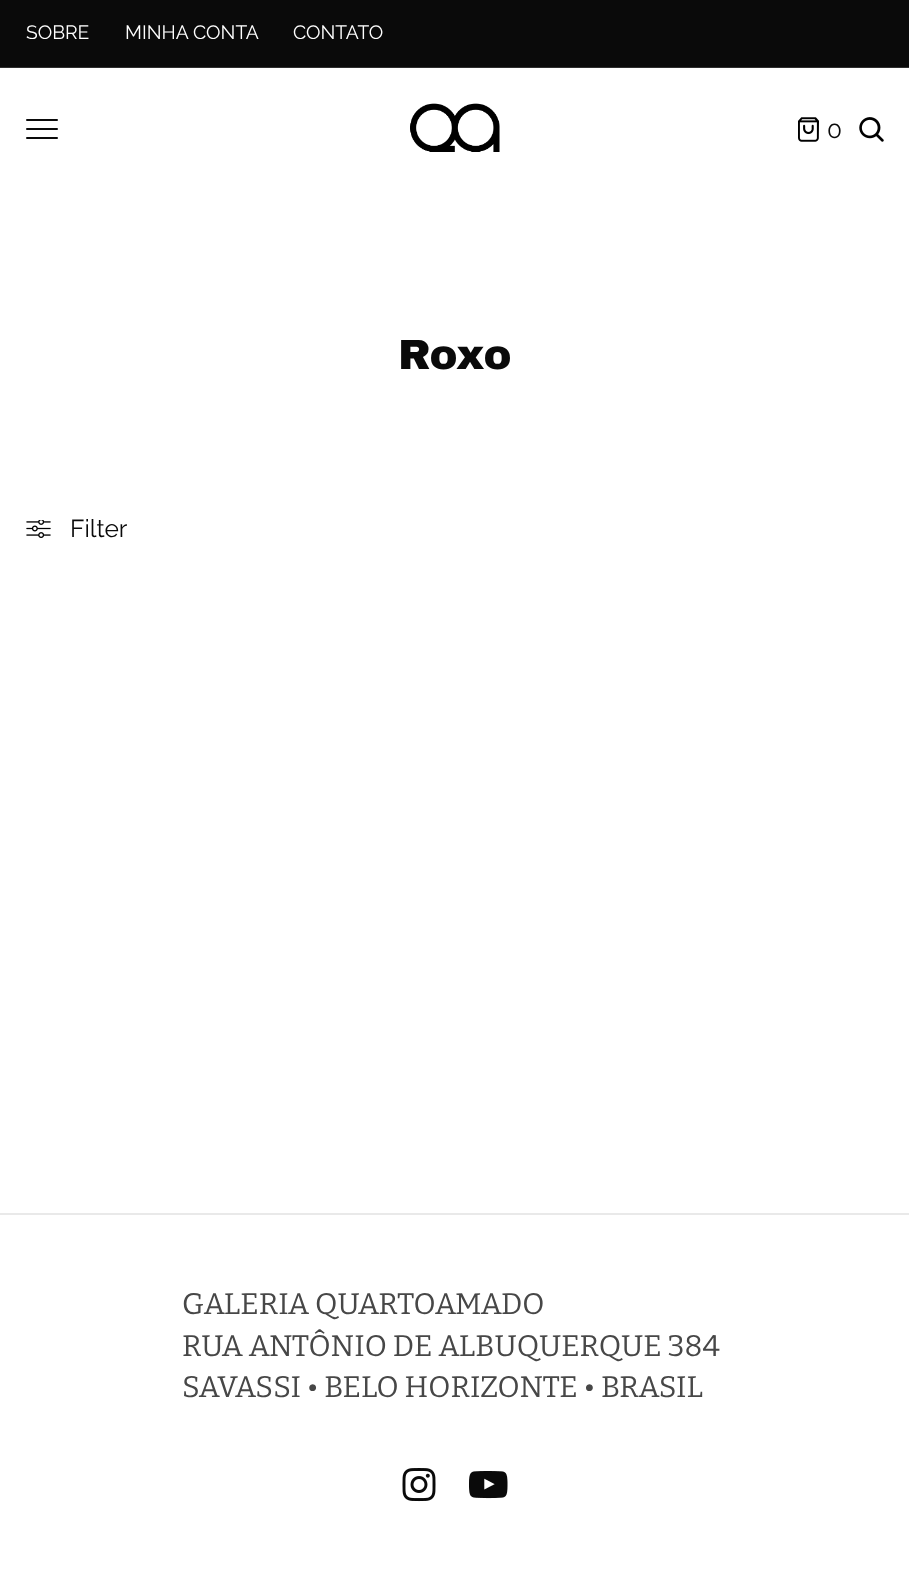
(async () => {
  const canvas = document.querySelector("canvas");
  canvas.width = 909;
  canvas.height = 1574;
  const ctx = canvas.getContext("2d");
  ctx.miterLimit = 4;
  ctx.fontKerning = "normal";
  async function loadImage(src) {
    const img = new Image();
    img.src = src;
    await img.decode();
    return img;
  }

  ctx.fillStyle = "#ffffff";
  ctx.fillRect(0, 0, 909, 1574);
  ctx.fillStyle = "#0a0a0a";
  ctx.fillRect(0, 0, 909, 67);
  ctx.fillStyle = "#2f2f2f";
  ctx.fillRect(0, 67, 909, 1);
  ctx.fillStyle = "#0a0a0a";
  ctx.beginPath();
  ctx.roundRect(26, 119, 32, 2, 1);
  ctx.fill();
  ctx.beginPath();
  ctx.roundRect(26, 128, 32, 2, 1);
  ctx.fill();
  ctx.beginPath();
  ctx.roundRect(26, 137, 32, 2, 1);
  ctx.fill();
  ctx.drawImage(await loadImage("img/1.png"), 410, 103, 90, 49);
  ctx.drawImage(await loadImage("img/2.png"), 798, 117, 21, 25);
  ctx.drawImage(await loadImage("img/3.png"), 859, 117, 25, 25);
  ctx.drawImage(await loadImage("img/4.png"), 26, 520, 25, 18);
  ctx.fillStyle = "#e9e9e9";
  ctx.fillRect(0, 1213, 909, 2);
  ctx.drawImage(await loadImage("img/5.png"), 402, 1468, 34, 34);
  ctx.drawImage(await loadImage("img/6.png"), 469, 1471, 39, 28);
  ctx.font = "19.25px Raleway";
  ctx.fillStyle = "#ffffff";
  for (const [text, x, y] of [
    ["SOBRE", 26, 39],
    ["MINHA CONTA", 125, 39],
    ["CONTATO", 293, 39],
  ]) {
    ctx.fillText(text, x, y);
  }
  ctx.font = "24.5px Raleway";
  ctx.fillStyle = "#0a0a0a";
  ctx.fillText("0", 827, 138);
  ctx.font = "900 42px Archivo Black";
  ctx.fillText("Roxo", 398, 369);
  ctx.font = "24.5px Raleway";
  ctx.fillText("Filter", 70, 537);
  ctx.font = "29.75px Bitter";
  ctx.fillStyle = "#474747";
  for (const [text, x, y] of [
    ["GALERIA QUARTOAMADO", 182, 1314],
    ["RUA ANTÔNIO DE ALBUQUERQUE 384", 182, 1356],
    ["SAVASSI • BELO HORIZONTE • BRASIL", 182, 1397],
  ]) {
    ctx.fillText(text, x, y);
  }
})();
